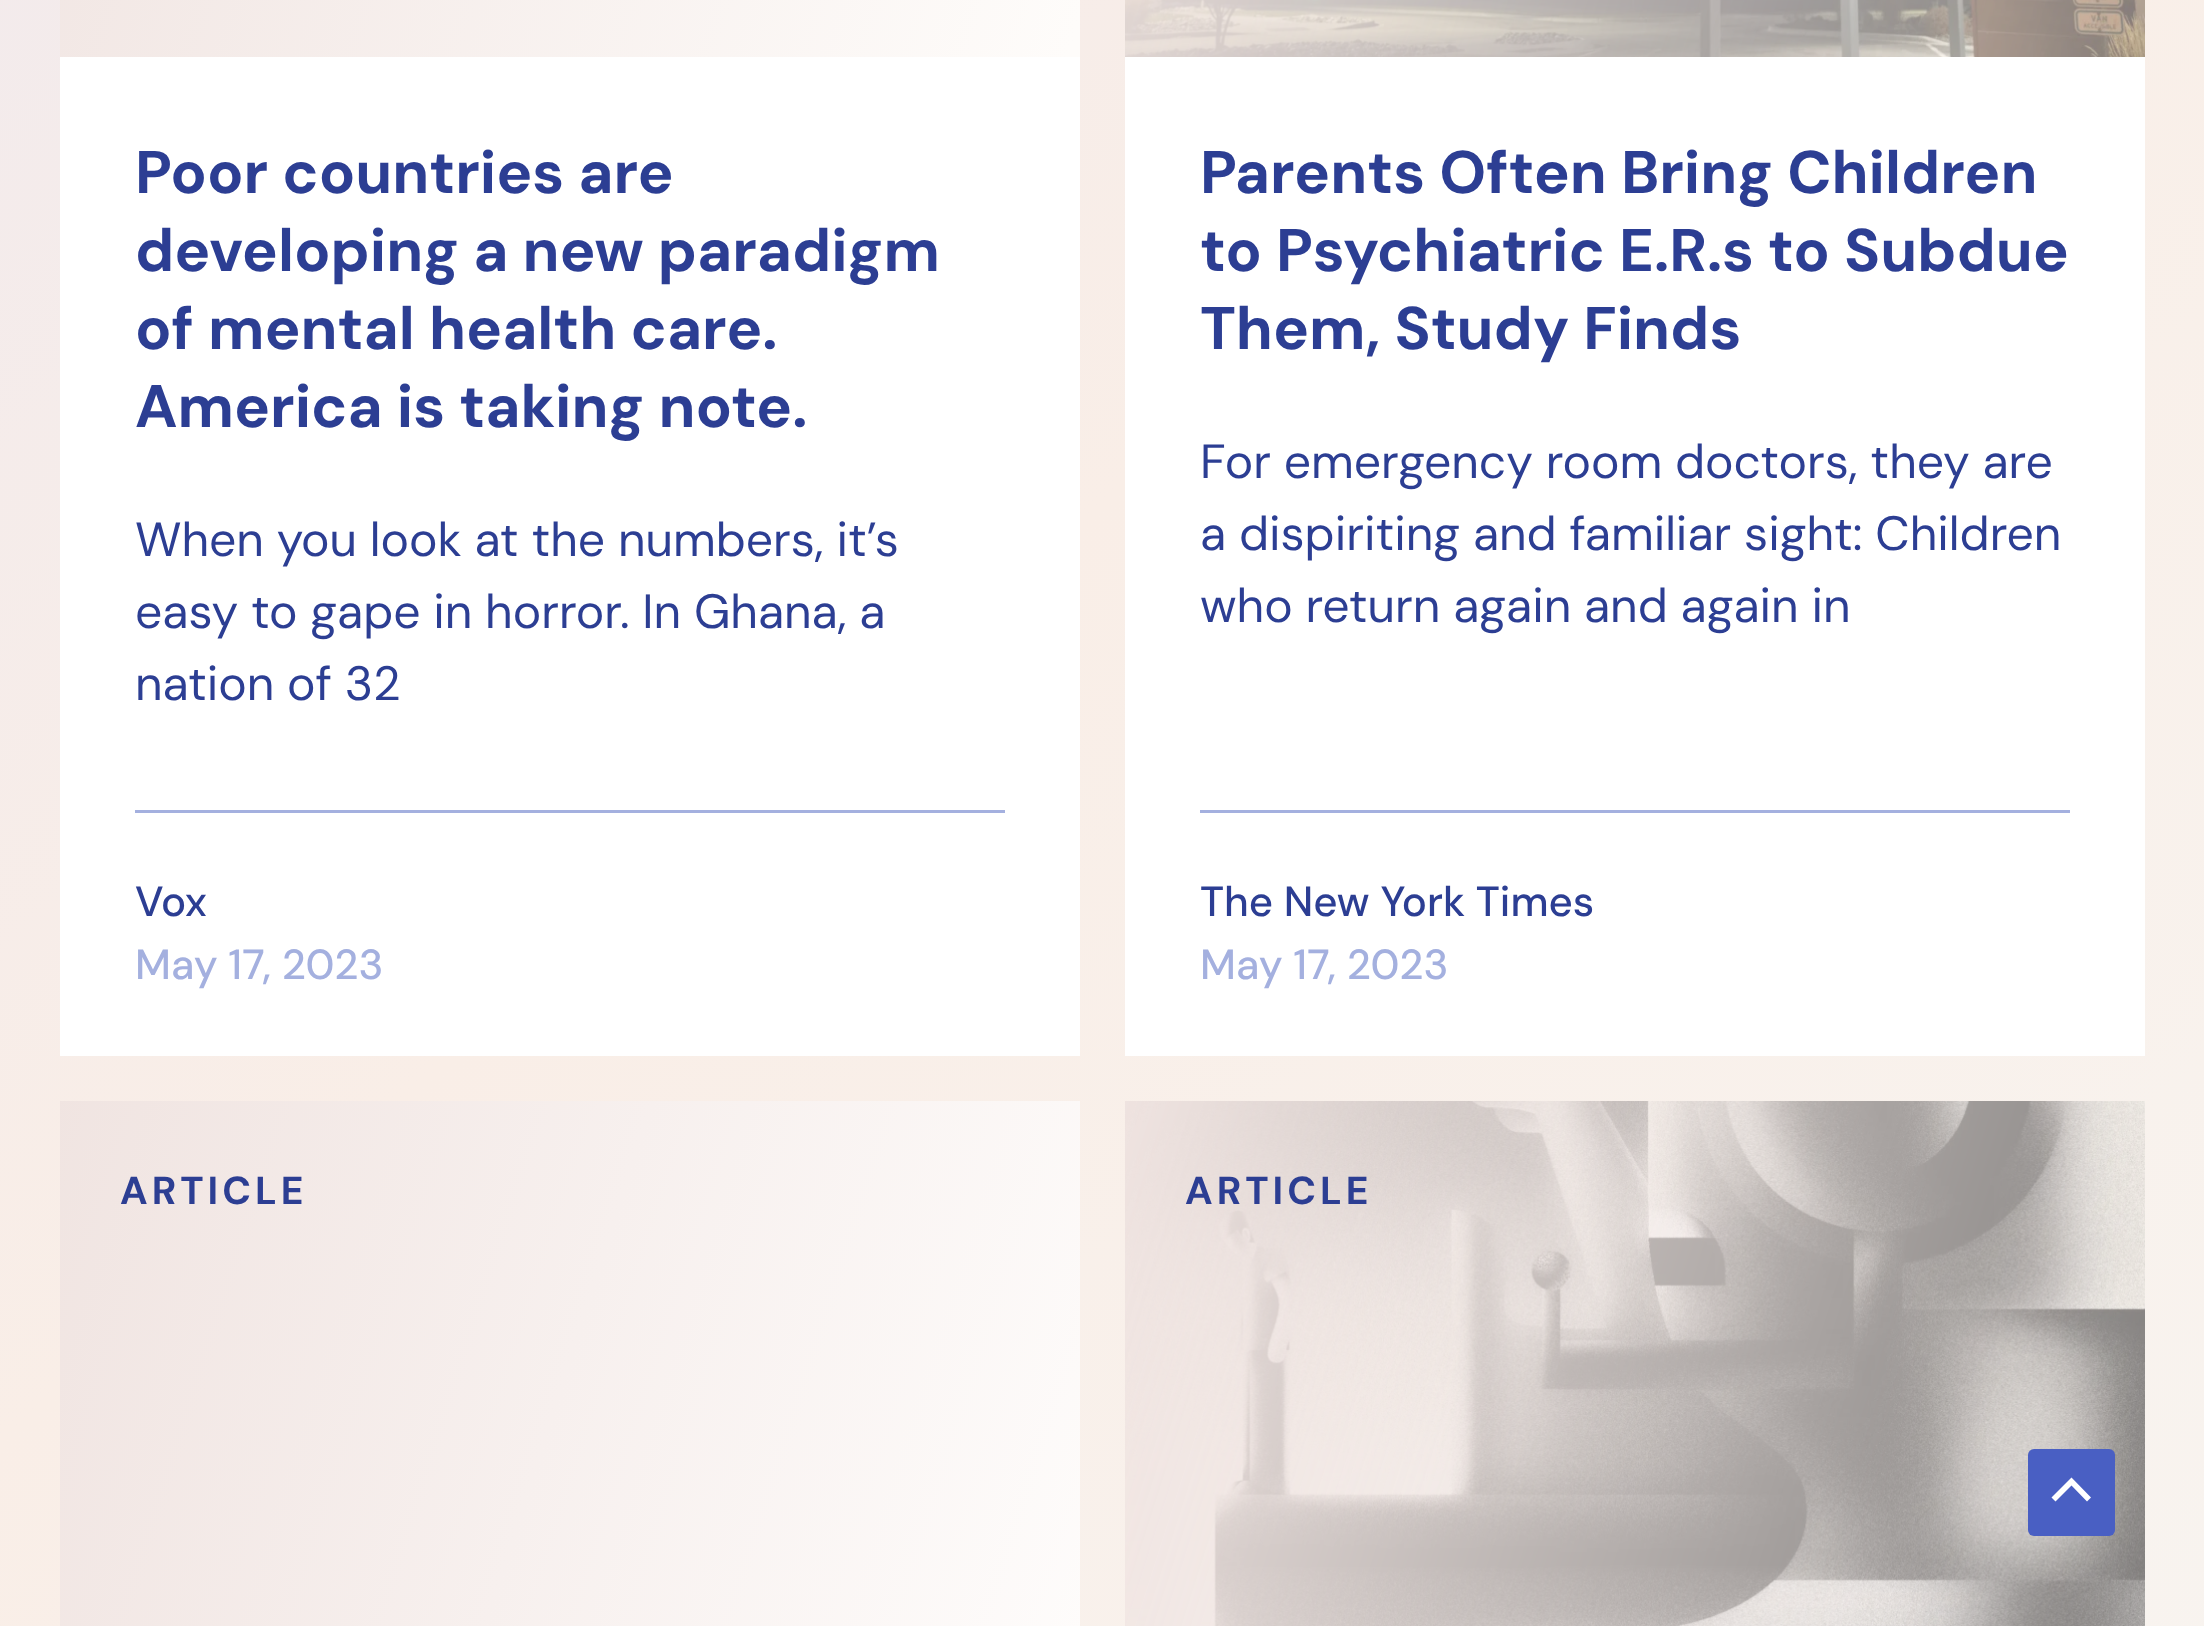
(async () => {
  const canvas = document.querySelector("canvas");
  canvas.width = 2204;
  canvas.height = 1626;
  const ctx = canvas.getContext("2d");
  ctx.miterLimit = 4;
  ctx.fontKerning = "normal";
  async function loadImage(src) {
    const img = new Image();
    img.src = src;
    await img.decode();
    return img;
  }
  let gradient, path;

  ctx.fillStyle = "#ffffff";
  ctx.fillRect(0, 0, 2204, 1626);
  gradient = ctx.createLinearGradient(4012, 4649, -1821, -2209);
  gradient.addColorStop(0.02, "#e5f6fa");
  gradient.addColorStop(0.37, "#f8f4f0");
  gradient.addColorStop(0.56, "#f9eee7");
  gradient.addColorStop(1, "#e4e3f8");
  ctx.fillStyle = gradient;
  ctx.fillRect(0, 0, 2204, 1626);
  ctx.fillStyle = "#ffffff";
  ctx.fillRect(60, 57, 1020, 999);
  gradient = ctx.createLinearGradient(1120, -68, 6.6, -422);
  gradient.addColorStop(0.01, "#fefcfa");
  gradient.addColorStop(1, "#f0e4e1");
  ctx.fillStyle = gradient;
  ctx.fillRect(60, 0, 1020, 57);
  ctx.fillStyle = "#a4b0df";
  ctx.fillRect(135, 810, 870, 3);
  ctx.fillStyle = "#ffffff";
  ctx.fillRect(1125, 57, 1020, 999);
  ctx.drawImage(await loadImage("img/1.png"), 1125, 0, 1020, 57);
  ctx.fillStyle = "#a4b0df";
  ctx.fillRect(1200, 810, 870, 3);
  gradient = ctx.createLinearGradient(1120, 1576, 6.6, 1222);
  gradient.addColorStop(0.01, "#fefcfb");
  gradient.addColorStop(1, "#f0e4e1");
  ctx.fillStyle = gradient;
  ctx.fillRect(60, 1101, 1020, 525);
  ctx.drawImage(await loadImage("img/2.png"), 1125, 1101, 1020, 525);
  ctx.fillStyle = "#495fc3";
  ctx.beginPath();
  ctx.roundRect(2028, 1449, 87, 87, 6);
  ctx.fill();
  ctx.fillStyle = "#ffffff";
  path = new Path2D("M2091 1497.5L2071.5 1477.5L2051.5 1497.5L2055.5 1501.5L2071.5 1485.5L2087 1501.5Z");
  ctx.fill(path);
  ctx.font = "bold 60px DM Sans";
  ctx.fillStyle = "#2c3e93";
  for (const [text, x, y] of [
    ["Poor countries are", 135, 193],
    ["developing a new paradigm", 135, 271],
    ["of mental health care.", 135, 349],
    ["America is taking note.", 135, 427],
  ]) {
    ctx.fillText(text, x, y);
  }
  ctx.font = "48px DM Sans";
  for (const [text, x, y] of [
    ["When you look at the numbers, it’s", 135, 556],
    ["easy to gape in horror. In Ghana, a", 135, 628],
    ["nation of 32", 135, 700],
  ]) {
    ctx.fillText(text, x, y);
  }
  ctx.font = "500 42px DM Sans";
  ctx.fillText("Vox", 135, 916);
  ctx.fillStyle = "#a4b0df";
  ctx.fillText("May 17, 2023", 135, 979);
  ctx.font = "bold 60px DM Sans";
  ctx.fillStyle = "#2c3e93";
  for (const [text, x, y] of [
    ["Parents Often Bring Children", 1200, 193],
    ["to Psychiatric E.R.s to Subdue", 1200, 271],
    ["Them, Study Finds", 1200, 349],
  ]) {
    ctx.fillText(text, x, y);
  }
  ctx.font = "48px DM Sans";
  for (const [text, x, y] of [
    ["For emergency room doctors, they are", 1200, 478],
    ["a dispiriting and familiar sight: Children", 1200, 550],
    ["who return again and again in", 1200, 622],
  ]) {
    ctx.fillText(text, x, y);
  }
  ctx.font = "500 42px DM Sans";
  ctx.fillText("The New York Times", 1200, 916);
  ctx.fillStyle = "#a4b0df";
  ctx.fillText("May 17, 2023", 1200, 979);
  ctx.letterSpacing = "4px";
  ctx.font = "bold 39px DM Sans";
  ctx.fillStyle = "#2c3e93";
  ctx.fillText("ARTICLE", 120, 1204);
  ctx.fillText("ARTICLE", 1185, 1204);
})();
